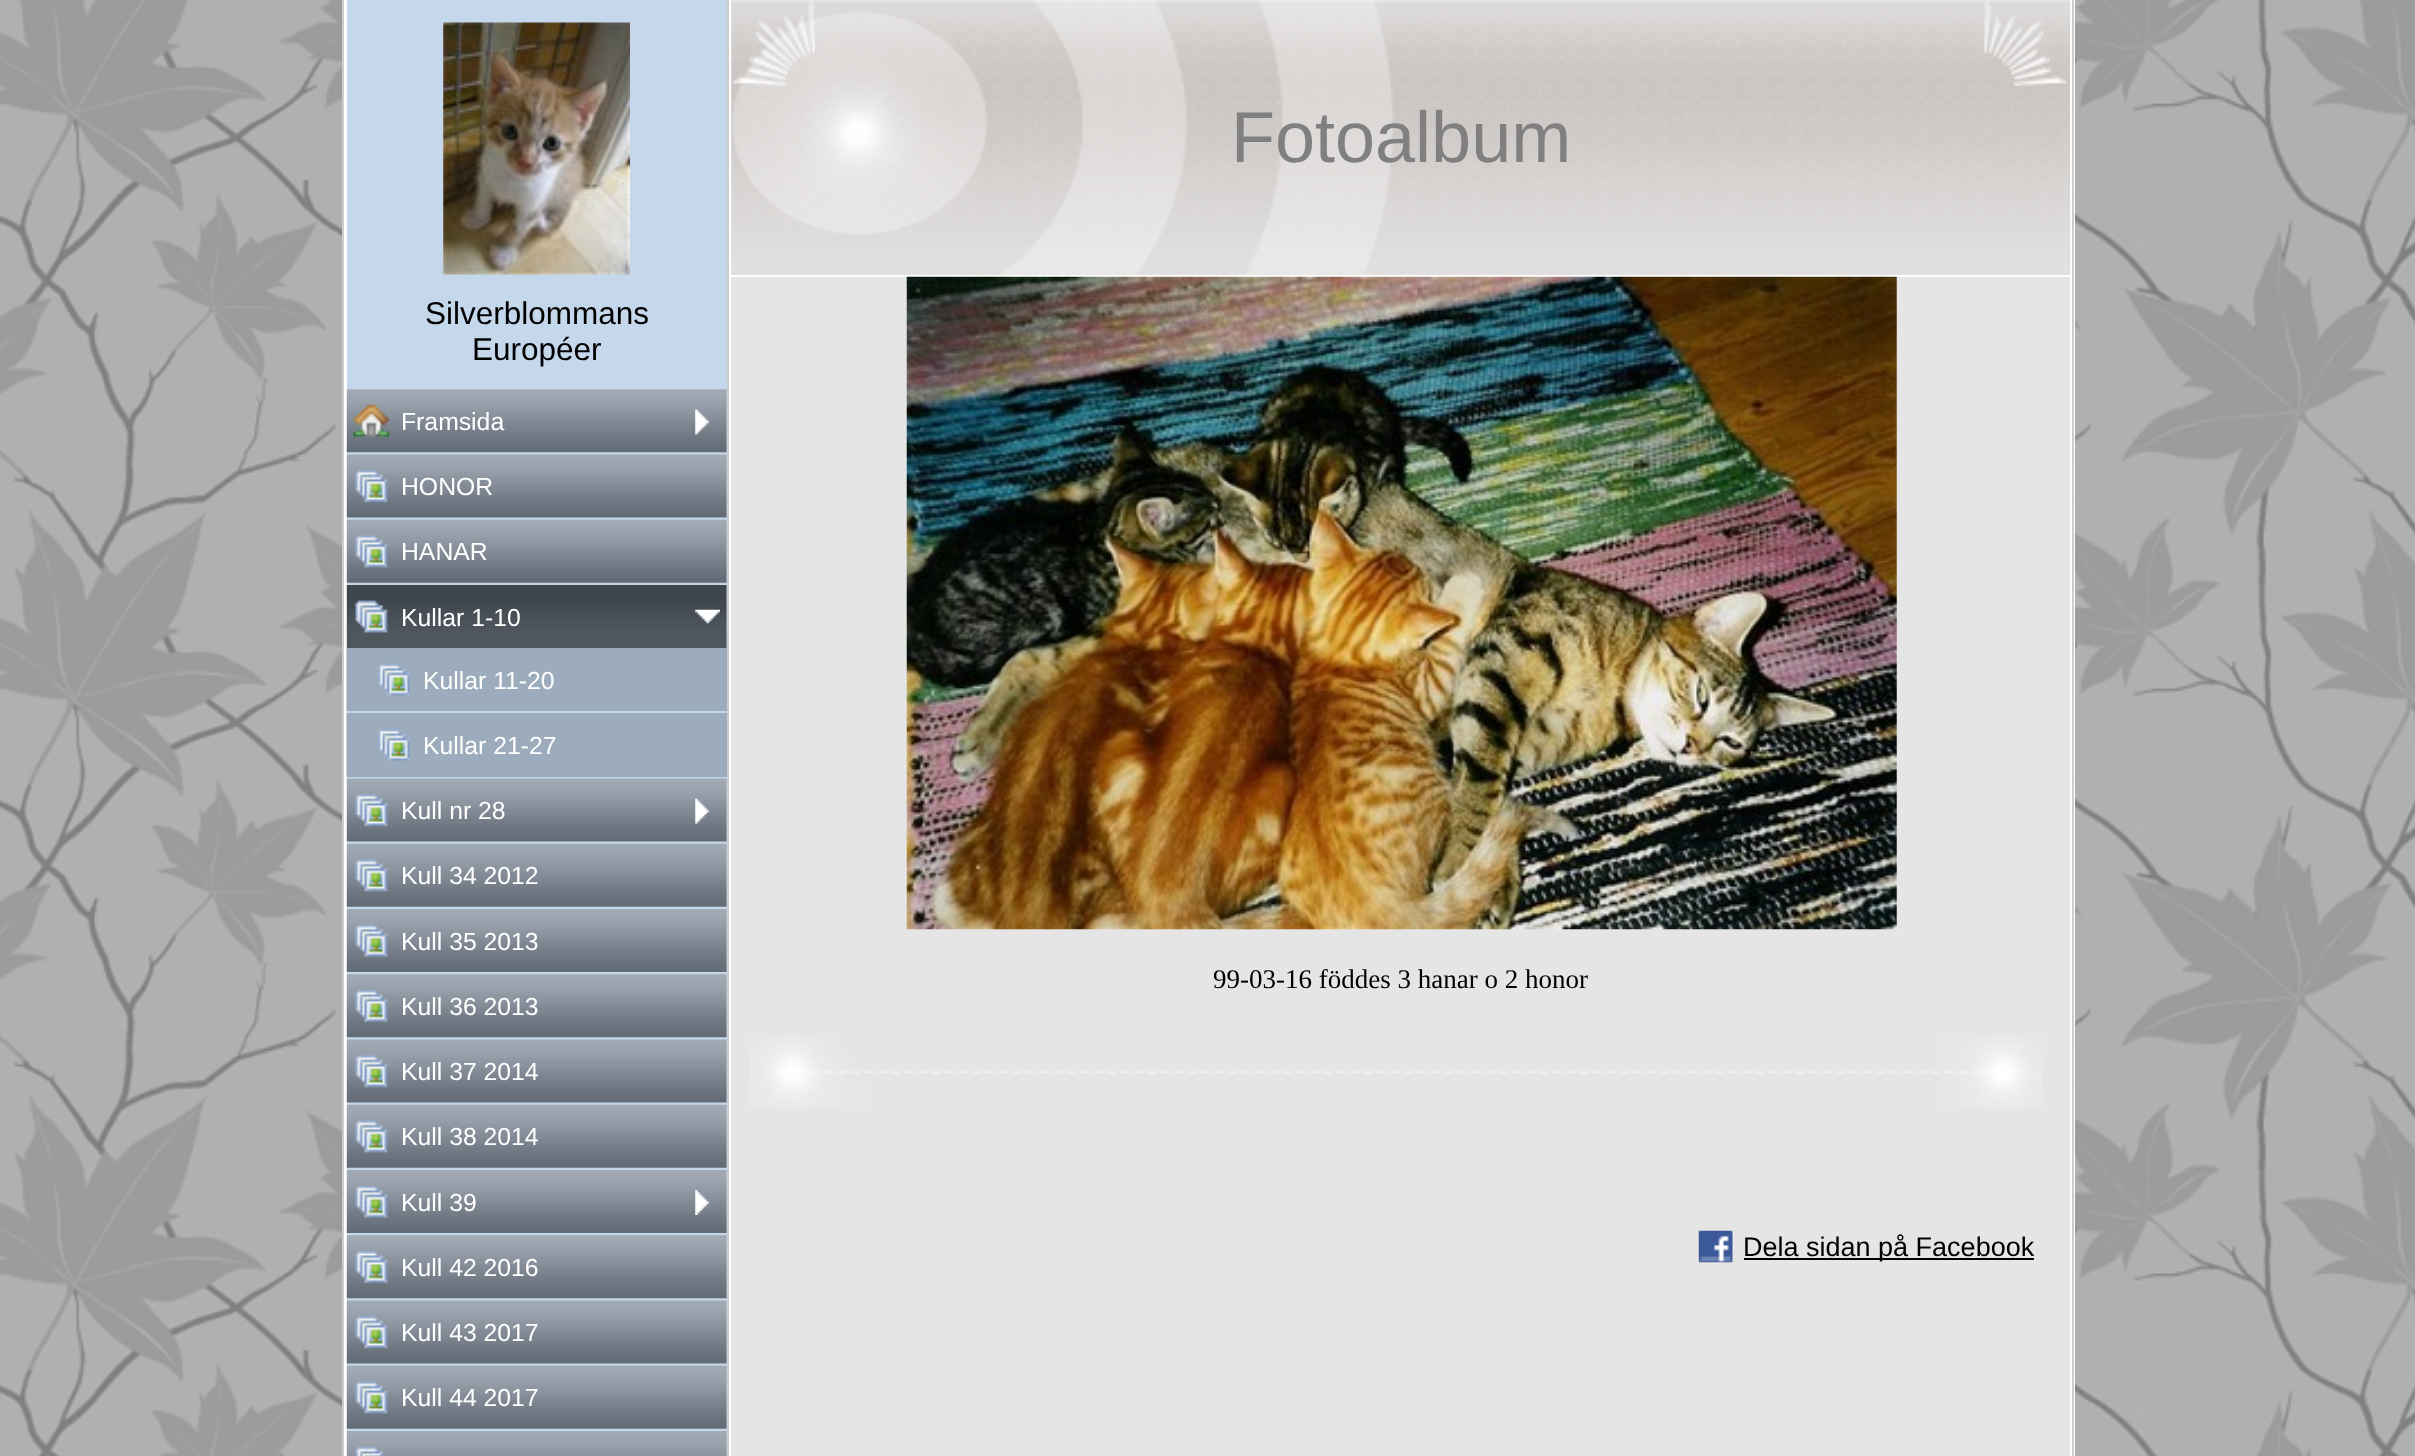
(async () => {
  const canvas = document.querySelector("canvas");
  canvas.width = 2415;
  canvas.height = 1456;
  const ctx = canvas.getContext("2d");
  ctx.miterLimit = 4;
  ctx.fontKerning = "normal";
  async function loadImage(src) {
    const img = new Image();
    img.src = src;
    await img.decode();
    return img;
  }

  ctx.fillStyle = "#ffffff";
  ctx.fillRect(0, 0, 2415, 1456);
  ctx.drawImage(await loadImage("img/1.png"), 0, 0, 2415, 1456);
  for (const [x, y, w, h, color] of [
    [344, 0, 1731, 1456, "#ffffff"],
    [342, 0, 2, 1456, "#cccccc"],
    [347, 0, 380, 1456, "#c4d7eb"],
  ]) {
    ctx.fillStyle = color;
    ctx.fillRect(x, y, w, h);
  }
  ctx.drawImage(await loadImage("img/2.png"), 443, 22, 187, 253);
  ctx.drawImage(await loadImage("img/3.png"), 346, 389, 381, 64);
  ctx.drawImage(await loadImage("img/4.png"), 353, 404, 37, 34);
  ctx.drawImage(await loadImage("img/5.png"), 695, 409, 14, 26);
  ctx.drawImage(await loadImage("img/6.png"), 346, 454, 381, 64);
  ctx.drawImage(await loadImage("img/7.png"), 355, 469, 33, 34);
  ctx.drawImage(await loadImage("img/8.png"), 346, 519, 381, 64);
  ctx.drawImage(await loadImage("img/9.png"), 355, 535, 33, 33);
  ctx.drawImage(await loadImage("img/10.png"), 346, 585, 381, 63);
  ctx.drawImage(await loadImage("img/11.png"), 355, 600, 33, 33);
  ctx.drawImage(await loadImage("img/12.png"), 695, 609, 25, 15);
  ctx.fillStyle = "rgba(0, 0, 0, 0.2)";
  ctx.fillRect(346, 648, 381, 63);
  ctx.drawImage(await loadImage("img/13.png"), 377, 663, 33, 33);
  ctx.fillRect(346, 713, 381, 64);
  ctx.drawImage(await loadImage("img/14.png"), 377, 728, 33, 33);
  ctx.drawImage(await loadImage("img/6.png"), 346, 778, 381, 64);
  ctx.drawImage(await loadImage("img/7.png"), 355, 793, 33, 34);
  ctx.drawImage(await loadImage("img/15.png"), 695, 798, 14, 26);
  ctx.drawImage(await loadImage("img/8.png"), 346, 843, 381, 64);
  ctx.drawImage(await loadImage("img/9.png"), 355, 859, 33, 33);
  ctx.drawImage(await loadImage("img/16.png"), 346, 909, 381, 63);
  ctx.drawImage(await loadImage("img/17.png"), 355, 924, 33, 33);
  ctx.drawImage(await loadImage("img/3.png"), 346, 974, 381, 64);
  ctx.drawImage(await loadImage("img/18.png"), 355, 989, 33, 34);
  ctx.drawImage(await loadImage("img/6.png"), 346, 1039, 381, 64);
  ctx.drawImage(await loadImage("img/7.png"), 355, 1054, 33, 34);
  ctx.drawImage(await loadImage("img/8.png"), 346, 1104, 381, 64);
  ctx.drawImage(await loadImage("img/9.png"), 355, 1120, 33, 33);
  ctx.drawImage(await loadImage("img/16.png"), 346, 1170, 381, 63);
  ctx.drawImage(await loadImage("img/17.png"), 355, 1185, 33, 33);
  ctx.drawImage(await loadImage("img/19.png"), 695, 1190, 14, 25);
  ctx.drawImage(await loadImage("img/3.png"), 346, 1235, 381, 64);
  ctx.drawImage(await loadImage("img/18.png"), 355, 1250, 33, 34);
  ctx.drawImage(await loadImage("img/6.png"), 346, 1300, 381, 64);
  ctx.drawImage(await loadImage("img/7.png"), 355, 1315, 33, 34);
  ctx.drawImage(await loadImage("img/8.png"), 346, 1365, 381, 64);
  ctx.drawImage(await loadImage("img/9.png"), 355, 1381, 33, 33);
  ctx.drawImage(await loadImage("img/20.png"), 346, 1431, 381, 25);
  ctx.drawImage(await loadImage("img/21.png"), 355, 1446, 33, 10);
  ctx.fillStyle = "#cccccc";
  ctx.fillRect(727, 0, 2, 1456);
  ctx.fillStyle = "#e5e5e5";
  ctx.fillRect(731, 0, 1339, 1456);
  ctx.drawImage(await loadImage("img/22.png"), 731, 0, 1339, 275);
  ctx.fillStyle = "#ffffff";
  ctx.fillRect(731, 275, 1339, 2);
  ctx.drawImage(await loadImage("img/23.png"), 906, 276, 991, 654);
  ctx.drawImage(await loadImage("img/24.png"), 750, 1034, 1292, 75);
  ctx.drawImage(await loadImage("img/25.png"), 1698, 1230, 35, 33);
  ctx.fillStyle = "#000000";
  ctx.fillRect(1744, 1258, 290, 2);
  ctx.fillStyle = "#cccccc";
  ctx.fillRect(2072, 0, 2, 1456);
  ctx.font = "31.5px Liberation Sans";
  ctx.fillStyle = "#000000";
  ctx.fillText("Silverblommans", 425, 324);
  ctx.fillText("Européer", 472, 360);
  ctx.font = "24.75px Liberation Sans";
  ctx.fillStyle = "#ffffff";
  for (const [text, x, y] of [
    ["Framsida", 401, 430],
    ["HONOR", 401, 495],
    ["HANAR", 401, 560],
    ["Kullar 1-10", 401, 626],
    ["Kullar 11-20", 423, 689],
    ["Kullar 21-27", 423, 754],
    ["Kull nr 28", 401, 819],
    ["Kull 34 2012", 401, 884],
    ["Kull 35 2013", 401, 950],
    ["Kull 36 2013", 401, 1015],
    ["Kull 37 2014", 401, 1080],
    ["Kull 38 2014", 401, 1145],
    ["Kull 39", 401, 1211],
    ["Kull 42 2016", 401, 1276],
    ["Kull 43 2017", 401, 1341],
    ["Kull 44 2017", 401, 1406],
  ]) {
    ctx.fillText(text, x, y);
  }
  ctx.font = "72px Liberation Sans";
  ctx.fillStyle = "#808080";
  ctx.fillText("Fotoalbum", 1231, 162);
  ctx.font = "27px Liberation Serif";
  ctx.fillStyle = "#000000";
  ctx.fillText("99-03-16 föddes 3 hanar o 2 honor", 1213, 988);
  ctx.font = "27px Liberation Sans";
  ctx.fillText("Dela sidan på Facebook", 1743, 1256);
})();
